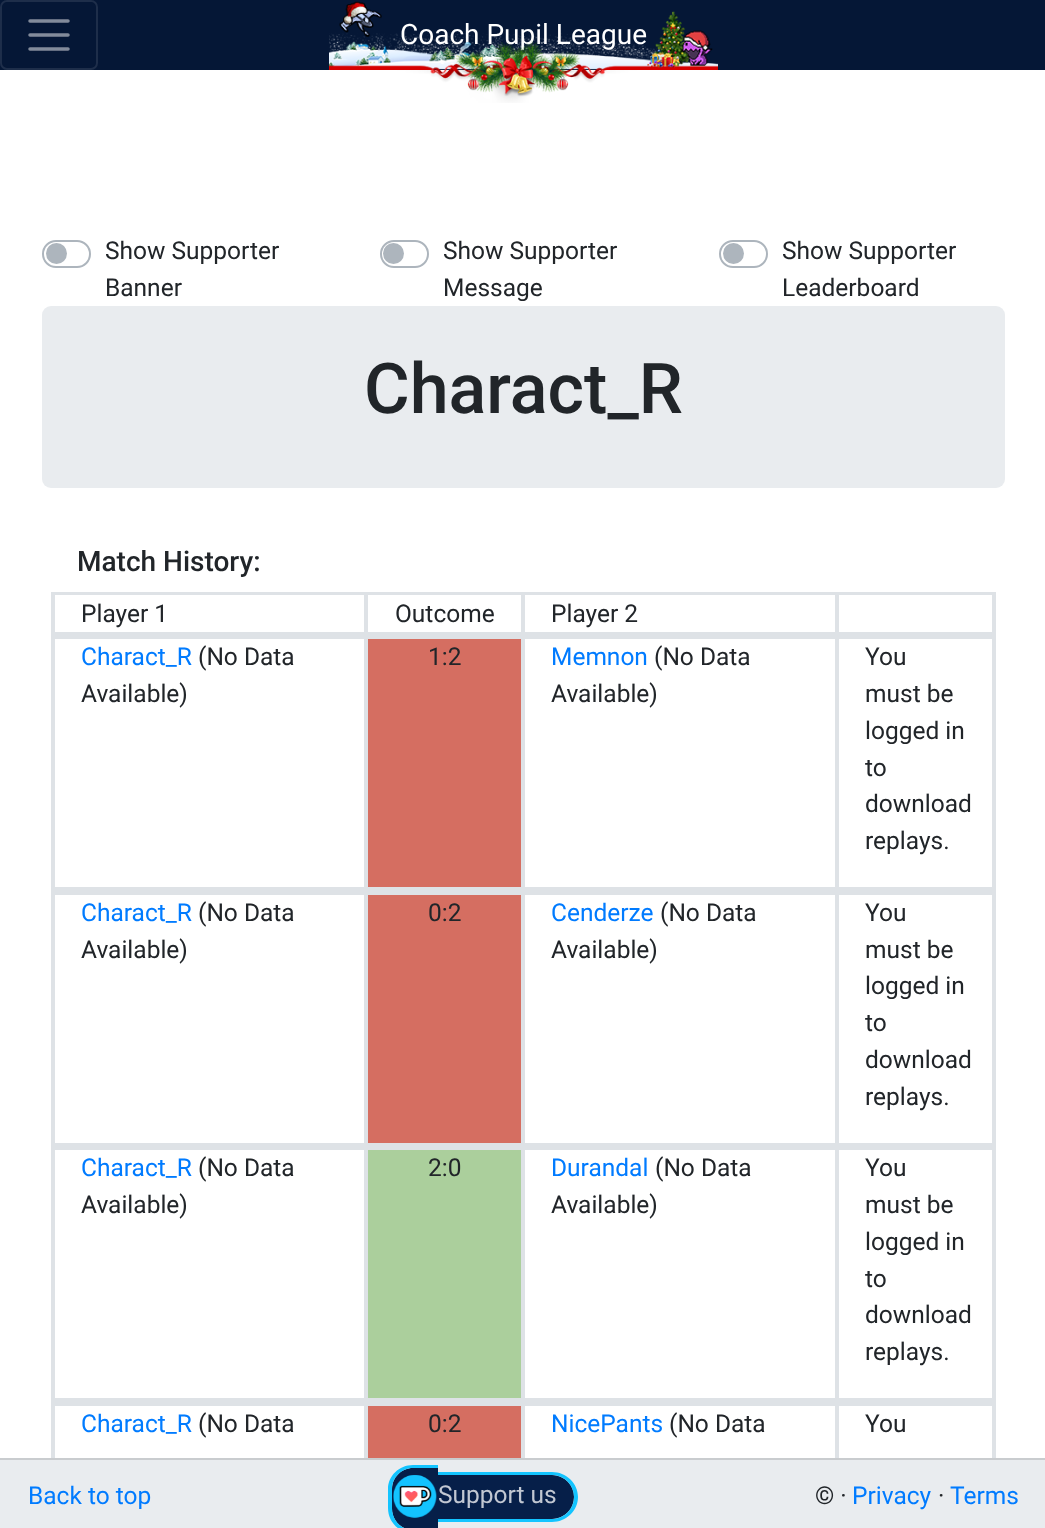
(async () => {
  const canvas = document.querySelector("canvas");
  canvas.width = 1045;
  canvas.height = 1528;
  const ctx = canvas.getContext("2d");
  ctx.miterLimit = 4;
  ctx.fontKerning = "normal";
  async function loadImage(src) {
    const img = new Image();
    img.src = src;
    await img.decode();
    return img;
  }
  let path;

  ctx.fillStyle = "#ffffff";
  ctx.fillRect(0, 0, 1045, 1528);
  ctx.fillStyle = "#051736";
  ctx.fillRect(0, 0, 1045, 70);
  ctx.beginPath();
  ctx.roundRect(1, 1, 96, 68, 6);
  ctx.strokeStyle = "#1e2e4a";
  ctx.lineWidth = 2;
  ctx.stroke();
  path = new Path2D("M30 21H68M30 35H68M30 49H68");
  ctx.strokeStyle = "#828b9b";
  ctx.lineWidth = 3.5;
  ctx.lineCap = "round";
  ctx.stroke(path);
  ctx.beginPath();
  ctx.roundRect(43, 241, 47, 26, 13);
  ctx.strokeStyle = "#adb5bd";
  ctx.lineWidth = 2;
  ctx.stroke();
  ctx.fillStyle = "#adb5bd";
  ctx.beginPath();
  ctx.arc(56.5, 253.5, 10.5, 0, Math.PI * 2);
  ctx.fill();
  ctx.beginPath();
  ctx.roundRect(381, 241, 47, 26, 13);
  ctx.stroke();
  ctx.beginPath();
  ctx.arc(393.5, 253.5, 10.5, 0, Math.PI * 2);
  ctx.fill();
  ctx.beginPath();
  ctx.roundRect(720, 241, 47, 26, 13);
  ctx.stroke();
  ctx.beginPath();
  ctx.arc(733.5, 253.5, 10.5, 0, Math.PI * 2);
  ctx.fill();
  ctx.fillStyle = "#e9ecef";
  ctx.beginPath();
  ctx.roundRect(42, 306, 963, 182, 9);
  ctx.fill();
  ctx.strokeStyle = "#dee2e6";
  ctx.strokeRect(52, 593, 943, 41);
  ctx.strokeRect(54, 594, 311, 39);
  ctx.strokeRect(367, 594, 155, 39);
  ctx.strokeRect(524, 594, 312, 39);
  ctx.strokeRect(838, 594, 155, 39);
  ctx.strokeRect(52, 636, 943, 254);
  ctx.strokeRect(54, 638, 311, 250);
  ctx.fillStyle = "#d56e61";
  ctx.beginPath();
  ctx.rect(367, 638, 155, 250);
  ctx.fill();
  ctx.stroke();
  ctx.strokeRect(524, 638, 312, 250);
  ctx.strokeRect(838, 638, 155, 250);
  ctx.strokeRect(52, 892, 943, 253);
  ctx.strokeRect(54, 894, 311, 250);
  ctx.beginPath();
  ctx.rect(367, 894, 155, 250);
  ctx.fill();
  ctx.stroke();
  ctx.strokeRect(524, 894, 312, 250);
  ctx.strokeRect(838, 894, 155, 250);
  ctx.strokeRect(52, 1147, 943, 254);
  ctx.strokeRect(54, 1149, 311, 250);
  ctx.fillStyle = "#abcf9c";
  ctx.beginPath();
  ctx.rect(367, 1149, 155, 250);
  ctx.fill();
  ctx.stroke();
  ctx.strokeRect(524, 1149, 312, 250);
  ctx.strokeRect(838, 1149, 155, 250);
  ctx.strokeRect(52, 1403, 943, 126);
  ctx.strokeRect(54, 1405, 311, 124);
  ctx.fillStyle = "#d56e61";
  ctx.fillRect(368, 1406, 153, 52);
  ctx.strokeRect(367, 1405, 155, 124);
  ctx.strokeRect(524, 1405, 312, 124);
  ctx.strokeRect(838, 1405, 155, 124);
  ctx.fillStyle = "#e9ecef";
  ctx.fillRect(0, 1460, 1045, 68);
  ctx.fillStyle = "#c9cccf";
  ctx.fillRect(0, 1458, 1045, 2);
  ctx.fillStyle = "#061f49";
  path = new Path2D("M413 1468H438V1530H413C401.5 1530 392 1520.5 392 1509V1489C392 1477.5 401.5 1468 413 1468Z");
  ctx.fill(path);
  ctx.fillStyle = "#13c4ff";
  path = new Path2D("M413 1465H438V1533H413C399 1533 388 1522 388 1508V1489C388 1476 399 1465 413 1465ZM413 1468H438V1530H413C401 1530 392 1520 392 1508V1489C392 1478 401 1468 413 1468Z");
  ctx.fill(path, "evenodd");
  ctx.drawImage(await loadImage("img/2.png"), 393, 1475, 44, 43);
  ctx.fillStyle = "#061f49";
  ctx.beginPath();
  ctx.roundRect(438, 1475, 136, 44, [0, 22, 22, 0]);
  ctx.fill();
  ctx.fillStyle = "#13c4ff";
  path = new Path2D("M438 1472H552C566 1472 578 1483 578 1497C578 1511 566 1522 552 1522H438ZM438 1475H552C564 1475 574 1485 574 1497C574 1509 564 1519 552 1519H438Z");
  ctx.fill(path, "evenodd");
  ctx.font = "28px Roboto";
  ctx.fillStyle = "#ffffff";
  ctx.fillText("Coach Pupil League", 400, 44);
  ctx.drawImage(await loadImage("img/1.png"), 329, 1, 389, 102);
  ctx.font = "24.5px Roboto";
  ctx.fillStyle = "#212529";
  for (const [text, x, y] of [
    ["Show Supporter", 105, 259],
    ["Banner", 105, 296],
    ["Show Supporter", 443, 259],
    ["Message", 443, 296],
    ["Show Supporter", 782, 259],
    ["Leaderboard", 782, 296],
  ]) {
    ctx.fillText(text, x, y);
  }
  ctx.font = "500 70px Roboto";
  ctx.fillText("Charact_R", 364, 413);
  ctx.font = "500 28px Roboto";
  ctx.fillText("Match History:", 77, 571);
  ctx.font = "24.5px Roboto";
  for (const [text, x, y] of [
    ["Player 1", 81, 622],
    ["Outcome", 395, 622],
    ["Player 2", 551, 622],
  ]) {
    ctx.fillText(text, x, y);
  }
  ctx.fillStyle = "#007bff";
  ctx.fillText("Charact_R", 81, 665);
  ctx.fillStyle = "#212529";
  for (const [text, x, y] of [
    ["(No Data", 198, 665],
    ["Available)", 81, 702],
    ["1:2", 428, 665],
  ]) {
    ctx.fillText(text, x, y);
  }
  ctx.fillStyle = "#007bff";
  ctx.fillText("Memnon", 551, 665);
  ctx.fillStyle = "#212529";
  for (const [text, x, y] of [
    ["(No Data", 654, 665],
    ["Available)", 551, 702],
    ["You", 865, 665],
    ["must be", 865, 702],
    ["logged in", 865, 739],
    ["to", 865, 776],
    ["download", 865, 812],
    ["replays.", 865, 849],
  ]) {
    ctx.fillText(text, x, y);
  }
  ctx.fillStyle = "#007bff";
  ctx.fillText("Charact_R", 81, 921);
  ctx.fillStyle = "#212529";
  for (const [text, x, y] of [
    ["(No Data", 198, 921],
    ["Available)", 81, 958],
    ["0:2", 428, 921],
  ]) {
    ctx.fillText(text, x, y);
  }
  ctx.fillStyle = "#007bff";
  ctx.fillText("Cenderze", 551, 921);
  ctx.fillStyle = "#212529";
  for (const [text, x, y] of [
    ["(No Data", 660, 921],
    ["Available)", 551, 958],
    ["You", 865, 921],
    ["must be", 865, 958],
    ["logged in", 865, 994],
    ["to", 865, 1031],
    ["download", 865, 1068],
    ["replays.", 865, 1105],
  ]) {
    ctx.fillText(text, x, y);
  }
  ctx.fillStyle = "#007bff";
  ctx.fillText("Charact_R", 81, 1176);
  ctx.fillStyle = "#212529";
  for (const [text, x, y] of [
    ["(No Data", 198, 1176],
    ["Available)", 81, 1213],
    ["2:0", 428, 1176],
  ]) {
    ctx.fillText(text, x, y);
  }
  ctx.fillStyle = "#007bff";
  ctx.fillText("Durandal", 551, 1176);
  ctx.fillStyle = "#212529";
  for (const [text, x, y] of [
    ["(No Data", 655, 1176],
    ["Available)", 551, 1213],
    ["You", 865, 1176],
    ["must be", 865, 1213],
    ["logged in", 865, 1250],
    ["to", 865, 1287],
    ["download", 865, 1323],
    ["replays.", 865, 1360],
  ]) {
    ctx.fillText(text, x, y);
  }
  ctx.fillStyle = "#007bff";
  ctx.fillText("Charact_R", 81, 1432);
  ctx.fillStyle = "#212529";
  ctx.fillText("(No Data", 198, 1432);
  ctx.fillText("0:2", 428, 1432);
  ctx.fillStyle = "#007bff";
  ctx.fillText("NicePants", 551, 1432);
  ctx.fillStyle = "#212529";
  ctx.fillText("(No Data", 669, 1432);
  ctx.fillText("You", 865, 1432);
  ctx.fillStyle = "#007bff";
  ctx.fillText("Back to top", 28, 1504);
  ctx.fillStyle = "#c1c7d2";
  ctx.fillText("Support us", 438, 1503);
  ctx.fillStyle = "#212529";
  ctx.fillText("© ·", 815, 1504);
  ctx.fillStyle = "#007bff";
  ctx.fillText("Privacy", 852, 1504);
  ctx.fillStyle = "#212529";
  ctx.fillText("·", 938, 1504);
  ctx.fillStyle = "#007bff";
  ctx.fillText("Terms", 950, 1504);
})();
